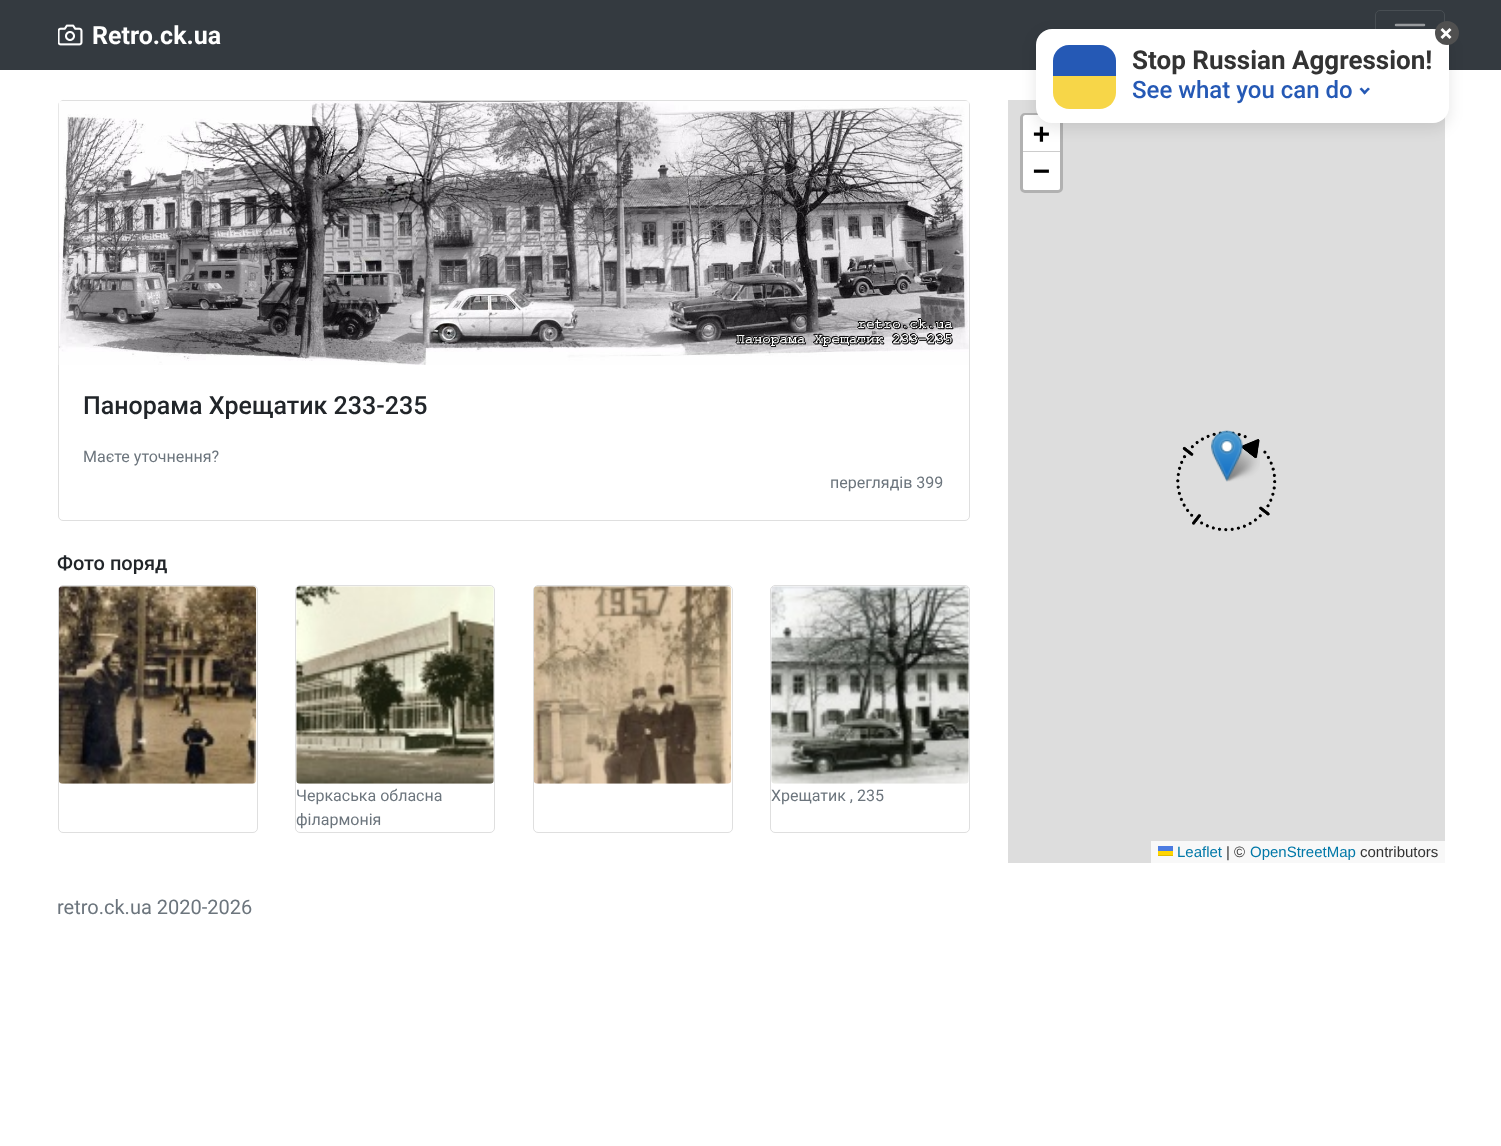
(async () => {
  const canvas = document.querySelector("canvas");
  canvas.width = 1501;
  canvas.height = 1146;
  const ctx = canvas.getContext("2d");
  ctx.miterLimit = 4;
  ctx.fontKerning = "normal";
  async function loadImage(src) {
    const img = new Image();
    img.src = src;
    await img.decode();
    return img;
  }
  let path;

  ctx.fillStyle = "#ffffff";
  ctx.fillRect(0, 0, 1501, 1146);
  ctx.fillStyle = "#343a40";
  ctx.fillRect(0, 0, 1501, 70);
  ctx.drawImage(await loadImage("img/1.png"), 58, 24, 25, 22);
  ctx.beginPath();
  ctx.roundRect(1375.5, 10.5, 69, 49, 4.5);
  ctx.strokeStyle = "#484e53";
  ctx.stroke();
  path = new Path2D("M1396 25H1424M1396 35H1424M1396 45H1424");
  ctx.strokeStyle = "#9a9da0";
  ctx.lineWidth = 2.5;
  ctx.lineCap = "round";
  ctx.stroke(path);
  ctx.beginPath();
  ctx.roundRect(58.5, 100.5, 911, 420, 4.5);
  ctx.strokeStyle = "#dfdfdf";
  ctx.lineWidth = 1;
  ctx.stroke();
  ctx.drawImage(await loadImage("img/2.png"), 58, 101, 911, 264);
  ctx.beginPath();
  ctx.roundRect(58.5, 585.5, 199, 247, 4.5);
  ctx.stroke();
  ctx.drawImage(await loadImage("img/3.png"), 58, 586, 199, 198);
  ctx.beginPath();
  ctx.roundRect(295.5, 585.5, 199, 247, 4.5);
  ctx.stroke();
  ctx.drawImage(await loadImage("img/4.png"), 296, 586, 198, 198);
  ctx.beginPath();
  ctx.roundRect(533.5, 585.5, 199, 247, 4.5);
  ctx.stroke();
  ctx.drawImage(await loadImage("img/5.png"), 533, 586, 199, 198);
  ctx.beginPath();
  ctx.roundRect(770.5, 585.5, 199, 247, 4.5);
  ctx.stroke();
  ctx.drawImage(await loadImage("img/6.png"), 771, 586, 198, 198);
  ctx.fillStyle = "#dddddd";
  ctx.fillRect(1008, 100, 437, 763);
  ctx.beginPath();
  ctx.roundRect(1021.5, 114.5, 40, 77, 3.5);
  ctx.strokeStyle = "#b1b1b1";
  ctx.lineWidth = 3;
  ctx.stroke();
  ctx.fillStyle = "#ffffff";
  ctx.beginPath();
  ctx.roundRect(1023, 115, 37, 38, [2.5, 2.5, 0, 0]);
  ctx.fill();
  ctx.fillStyle = "#cccccc";
  ctx.fillRect(1023, 151, 37, 1);
  ctx.fillStyle = "#ffffff";
  ctx.beginPath();
  ctx.roundRect(1023, 153, 37, 37, [0, 0, 2.5, 2.5]);
  ctx.fill();
  for (const [x, y, w, h, color] of [
    [1151, 841, 294, 22, "#f8f8f8"],
    [1158, 846, 15, 5, "#4c7be1"],
    [1158, 851, 15, 4, "#ffd500"],
    [1158, 855, 15, 1, "#e0bc00"],
  ]) {
    ctx.fillStyle = color;
    ctx.fillRect(x, y, w, h);
  }
  ctx.drawImage(await loadImage("img/9.png"), 1222, 446, 38, 36);
  ctx.drawImage(await loadImage("img/8.png"), 1176, 431, 101, 101);
  ctx.drawImage(await loadImage("img/7.png"), 1211, 430, 32, 52);
  ctx.fillStyle = "rgba(0, 0, 0, 0.1)";
  ctx.filter = "blur(7.5px)";
  ctx.beginPath();
  ctx.roundRect(1036, 34, 413, 94, 16);
  ctx.fill();
  ctx.filter = "none";
  ctx.fillStyle = "#ffffff";
  ctx.beginPath();
  ctx.roundRect(1036, 29, 413, 94, 16);
  ctx.fill();
  ctx.fillStyle = "#505050";
  ctx.beginPath();
  ctx.arc(1447, 33, 12, 0, Math.PI * 2);
  ctx.fill();
  ctx.fillStyle = "#ffffff";
  path = new Path2D("M1440.5 30L1442.5 28L1451.5 37L1449.5 39Z");
  ctx.fill(path);
  path = new Path2D("M1449.5 28L1451.5 30L1442.5 39L1440.5 37Z");
  ctx.fill(path);
  ctx.fillStyle = "#2559b5";
  ctx.beginPath();
  ctx.roundRect(1053, 45, 63, 31, [16, 16, 0, 0]);
  ctx.fill();
  ctx.fillStyle = "#f7d648";
  ctx.beginPath();
  ctx.roundRect(1053, 76, 63, 33, [0, 0, 16.5, 16.5]);
  ctx.fill();
  ctx.fillStyle = "#2559b5";
  path = new Path2D("M1363 92.5L1368 87.5L1370 89L1364.5 94.5Z");
  ctx.fill(path);
  path = new Path2D("M1359.5 89L1361.5 87.5L1366.5 92.5L1364.5 94.5Z");
  ctx.fill(path);
  ctx.font = "bold 25px Roboto";
  ctx.fillStyle = "#ffffff";
  ctx.fillText("Retro.ck.ua", 92, 44);
  ctx.font = "500 25px Roboto";
  ctx.fillStyle = "#212529";
  ctx.fillText("Панорама Хрещатик 233-235", 83, 414);
  ctx.font = "16px Roboto";
  ctx.fillStyle = "#6c757d";
  ctx.fillText("Маєте уточнення?", 83, 462);
  ctx.fillText("переглядів 399", 830, 488);
  ctx.font = "500 20px Roboto";
  ctx.fillStyle = "#212529";
  ctx.fillText("Фото поряд", 57, 570);
  ctx.font = "16px Roboto";
  ctx.fillStyle = "#6c757d";
  for (const [text, x, y] of [
    ["Черкаська обласна", 296, 801],
    ["філармонія", 296, 825],
    ["Хрещатик , 235", 771, 801],
  ]) {
    ctx.fillText(text, x, y);
  }
  ctx.font = "bold 28px DejaVu Sans Mono";
  ctx.fillStyle = "#000000";
  ctx.fillText("+", 1033, 143);
  ctx.fillText("−", 1033, 180);
  ctx.font = "15px Liberation Sans";
  ctx.fillStyle = "#0078a8";
  ctx.fillText("Leaflet", 1177, 857);
  ctx.fillStyle = "#333333";
  ctx.fillText("| ©", 1226, 857);
  ctx.fillStyle = "#0078a8";
  ctx.fillText("OpenStreetMap", 1250, 857);
  ctx.fillStyle = "#333333";
  ctx.fillText("contributors", 1360, 857);
  ctx.font = "20px Roboto";
  ctx.fillStyle = "#6c757d";
  ctx.fillText("retro.ck.ua 2020-2026", 57, 914);
  ctx.font = "bold 26px Roboto";
  ctx.fillStyle = "#333333";
  ctx.fillText("Stop Russian Aggression!", 1132, 69);
  ctx.font = "500 24px Roboto";
  ctx.fillStyle = "#2559b5";
  ctx.fillText("See what you can do", 1132, 98);
})();
